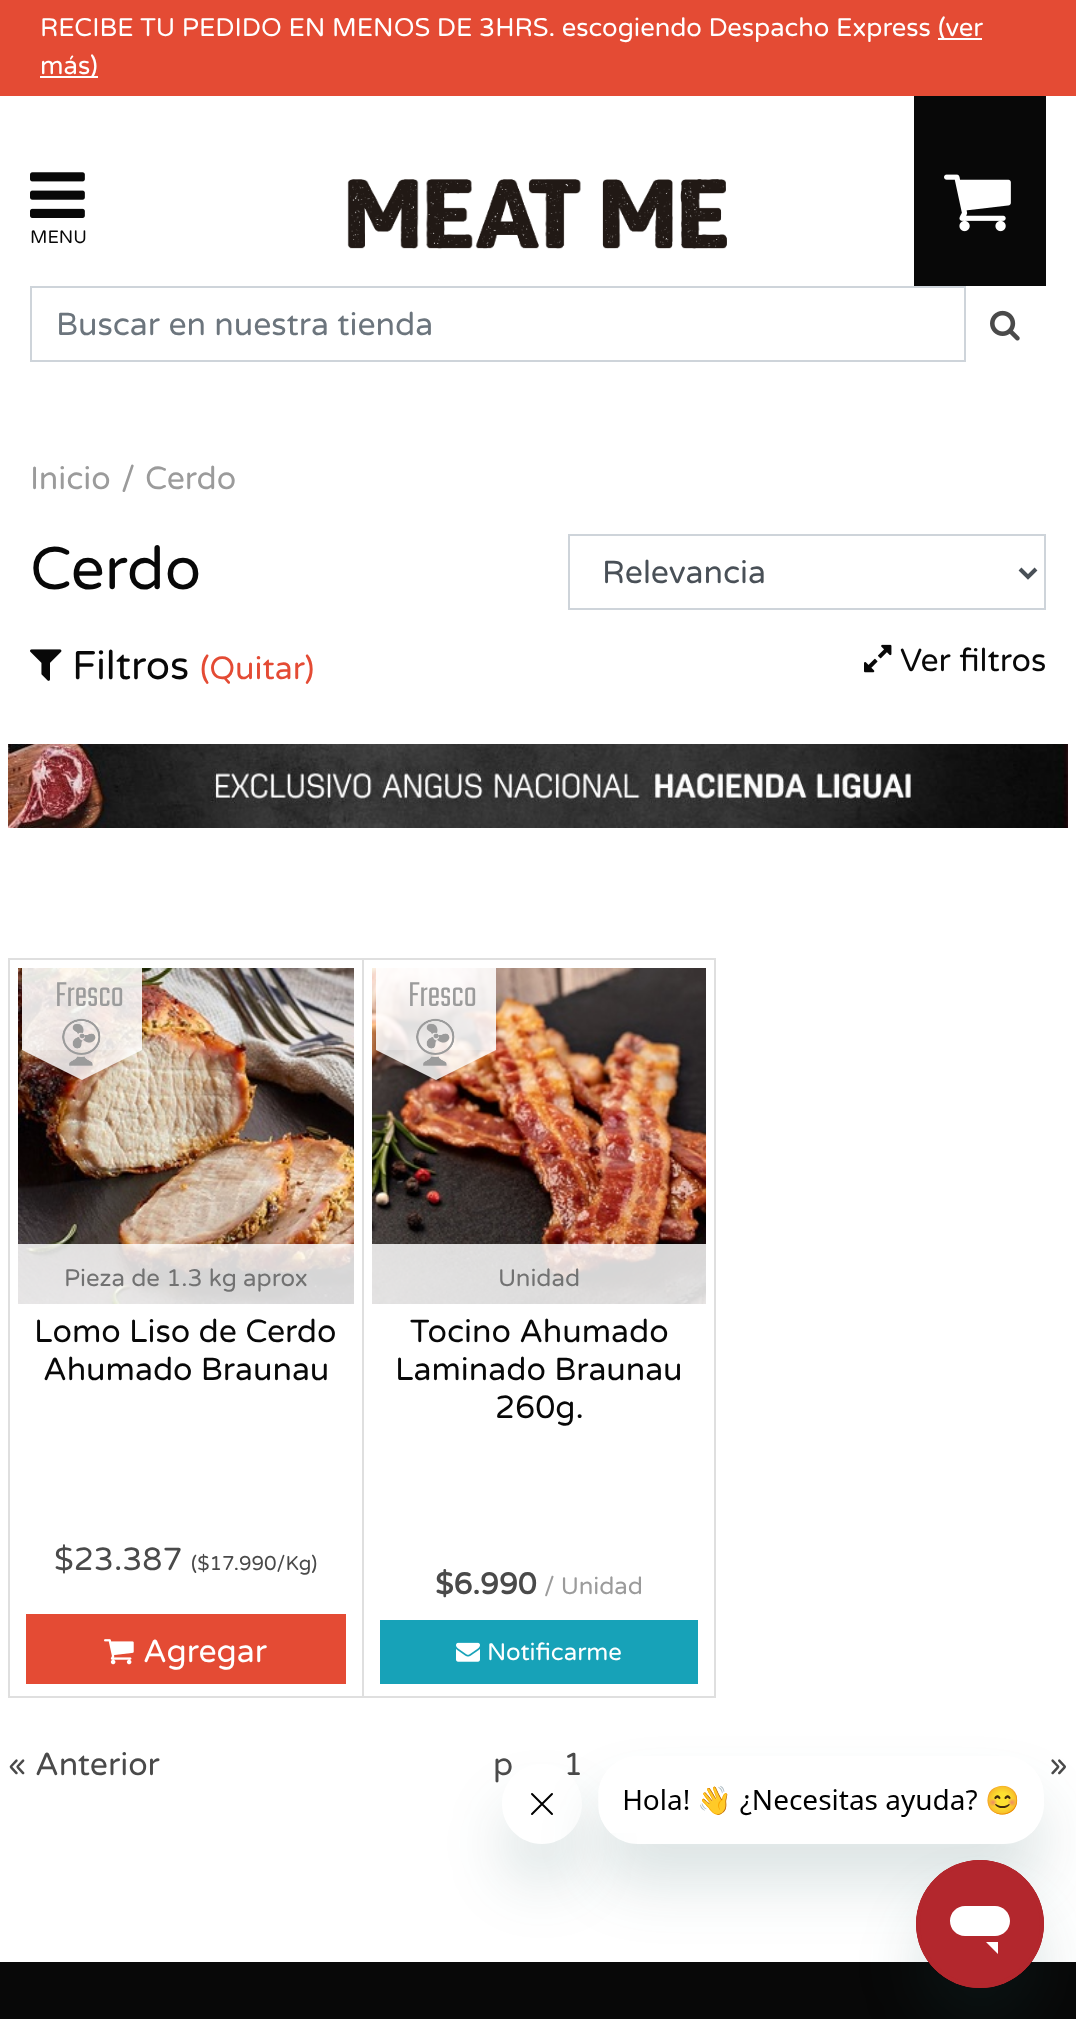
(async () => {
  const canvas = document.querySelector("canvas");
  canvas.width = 1076;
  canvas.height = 2019;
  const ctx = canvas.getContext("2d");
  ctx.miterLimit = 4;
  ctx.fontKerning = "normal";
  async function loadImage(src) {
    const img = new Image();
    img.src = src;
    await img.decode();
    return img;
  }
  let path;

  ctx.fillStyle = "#ffffff";
  ctx.fillRect(0, 0, 1076, 2019);
  for (const [x, y, w, h, color] of [
    [0, 0, 1076, 96, "#e44b34"],
    [938, 38, 44, 2, "#ffffff"],
    [40, 76, 58, 2, "#ffffff"],
  ]) {
    ctx.fillStyle = color;
    ctx.fillRect(x, y, w, h);
  }
  ctx.drawImage(await loadImage("img/1.png"), 30, 172, 55, 46);
  ctx.drawImage(await loadImage("img/2.png"), 347, 179, 380, 70);
  ctx.fillStyle = "#080808";
  ctx.fillRect(914, 96, 132, 190);
  ctx.drawImage(await loadImage("img/3.png"), 944, 174, 67, 58);
  ctx.strokeStyle = "#ced4da";
  ctx.lineWidth = 2;
  ctx.strokeRect(31, 287, 934, 74);
  ctx.drawImage(await loadImage("img/4.png"), 990, 310, 30, 31);
  ctx.strokeRect(569, 535, 476, 74);
  path = new Path2D("M1020 569L1028 577L1036 569");
  ctx.strokeStyle = "#495057";
  ctx.lineWidth = 4;
  ctx.stroke(path);
  ctx.drawImage(await loadImage("img/5.png"), 30, 649, 32, 32);
  ctx.drawImage(await loadImage("img/6.png"), 864, 644, 28, 29);
  ctx.drawImage(await loadImage("img/7.png"), 8, 744, 1060, 84);
  ctx.strokeStyle = "#dfdfdf";
  ctx.lineWidth = 2;
  ctx.strokeRect(9, 959, 354, 738);
  ctx.drawImage(await loadImage("img/9.png"), 18, 968, 336, 336);
  ctx.fillStyle = "rgba(255, 255, 255, 0.88)";
  ctx.fillRect(22, 968, 120, 82);
  ctx.fillStyle = "rgba(255, 255, 255, 0.84)";
  path = new Path2D("M22 1050H142L82 1080Z");
  ctx.fill(path);
  ctx.drawImage(await loadImage("img/8.png"), 62, 1018, 39, 48);
  ctx.fillRect(18, 1244, 336, 60);
  ctx.fillStyle = "#e44b34";
  ctx.fillRect(26, 1614, 320, 70);
  ctx.drawImage(await loadImage("img/10.png"), 104, 1639, 30, 26);
  ctx.strokeRect(363, 959, 352, 738);
  ctx.drawImage(await loadImage("img/12.png"), 372, 968, 334, 336);
  ctx.fillStyle = "rgba(255, 255, 255, 0.88)";
  ctx.fillRect(376, 968, 120, 82);
  ctx.fillStyle = "rgba(255, 255, 255, 0.84)";
  path = new Path2D("M376 1050H496L436 1080Z");
  ctx.fill(path);
  ctx.drawImage(await loadImage("img/11.png"), 416, 1018, 39, 48);
  ctx.fillRect(372, 1244, 334, 60);
  ctx.fillStyle = "#17a2b8";
  ctx.fillRect(380, 1620, 318, 64);
  ctx.drawImage(await loadImage("img/13.png"), 456, 1642, 24, 20);
  ctx.fillStyle = "#080808";
  ctx.fillRect(0, 1962, 1076, 57);
  ctx.save();
  path = new Path2D("M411 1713H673V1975H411ZM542 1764C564 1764 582 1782 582 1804C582 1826 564 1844 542 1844C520 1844 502 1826 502 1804C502 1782 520 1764 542 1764Z");
  ctx.clip(path, "evenodd");
  ctx.fillStyle = "rgba(23, 73, 77, 0.15)";
  ctx.filter = "blur(30px)";
  ctx.beginPath();
  ctx.roundRect(502, 1804, 80, 80, 40);
  ctx.fill();
  ctx.filter = "none";
  ctx.restore();
  ctx.font = "25.6px Varela Round";
  ctx.fillStyle = "#ffffff";
  for (const [text, x, y] of [
    ["RECIBE TU PEDIDO EN MENOS DE 3HRS. escogiendo Despacho Express", 40, 36],
    ["(ver", 938, 36],
    ["más)", 40, 74],
  ]) {
    ctx.fillText(text, x, y);
  }
  ctx.font = "18px Varela Round";
  ctx.fillStyle = "#080808";
  ctx.fillText("MENU", 30, 243);
  ctx.font = "32px Varela Round";
  ctx.fillStyle = "#6c757d";
  ctx.fillText("Buscar en nuestra tienda", 56, 335);
  ctx.fillStyle = "#9b9b9b";
  for (const [text, x, y] of [
    ["Inicio", 30, 489],
    ["/", 121, 489],
    ["Cerdo", 145, 489],
  ]) {
    ctx.fillText(text, x, y);
  }
  ctx.font = "60px Varela Round";
  ctx.fillStyle = "#080808";
  ctx.fillText("Cerdo", 30, 589);
  ctx.font = "32px Varela Round";
  ctx.fillStyle = "#495057";
  ctx.fillText("Relevancia", 602, 583);
  ctx.font = "40px Varela Round";
  ctx.fillStyle = "#080808";
  ctx.fillText("Filtros", 72, 679);
  ctx.font = "32px Varela Round";
  ctx.fillStyle = "#e44b34";
  ctx.fillText("(Quitar)", 200, 679);
  ctx.fillStyle = "#080808";
  ctx.fillText("Ver filtros", 900, 671);
  ctx.font = "300 38px Teko";
  ctx.fillStyle = "#9b9b9b";
  ctx.fillText("Fresco", 55, 1006);
  ctx.font = "24px Varela Round";
  ctx.fillStyle = "#727272";
  ctx.fillText("Pieza de 1.3 kg aprox", 64, 1286);
  ctx.font = "32px Varela Round";
  ctx.fillStyle = "#080808";
  ctx.fillText("Lomo Liso de Cerdo", 34, 1342);
  ctx.fillText("Ahumado Braunau", 43, 1380);
  ctx.fillStyle = "#4a4a4a";
  ctx.fillText("$23.387", 54, 1570);
  ctx.font = "20px Varela Round";
  ctx.fillText("($17.990/Kg)", 191, 1570);
  ctx.font = "32px Varela Round";
  ctx.fillStyle = "#ffffff";
  ctx.fillText("Agregar", 143, 1662);
  ctx.font = "300 38px Teko";
  ctx.fillStyle = "#9b9b9b";
  ctx.fillText("Fresco", 408, 1006);
  ctx.font = "24px Varela Round";
  ctx.fillStyle = "#727272";
  ctx.fillText("Unidad", 498, 1286);
  ctx.font = "32px Varela Round";
  ctx.fillStyle = "#080808";
  for (const [text, x, y] of [
    ["Tocino Ahumado", 410, 1342],
    ["Laminado Braunau", 395, 1380],
    ["260g.", 495, 1418],
  ]) {
    ctx.fillText(text, x, y);
  }
  ctx.font = "bold 30px Varela Round";
  ctx.fillStyle = "#4a4a4a";
  ctx.fillText("$6.990", 435, 1594);
  ctx.font = "24px Varela Round";
  ctx.fillStyle = "#9b9b9b";
  ctx.fillText("/ Unidad", 544, 1594);
  ctx.fillStyle = "#ffffff";
  ctx.fillText("Notificarme", 487, 1660);
  ctx.font = "32px Varela Round";
  ctx.fillStyle = "#4a4a4a";
  for (const [text, x, y] of [
    ["« Anterior", 8, 1775],
    ["p", 493, 1775],
    ["1", 563, 1775],
    ["»", 1049, 1775],
  ]) {
    ctx.fillText(text, x, y);
  }
  ctx.drawImage(await loadImage("img/15.png"), 515, 1764, 54, 51);
  ctx.save();
  path = new Path2D("M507 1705H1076V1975H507ZM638 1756H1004C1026 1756 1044 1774 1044 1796V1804C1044 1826 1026 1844 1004 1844H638C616 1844 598 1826 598 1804V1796C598 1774 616 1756 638 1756Z");
  ctx.clip(path, "evenodd");
  ctx.fillStyle = "rgba(23, 73, 77, 0.15)";
  ctx.filter = "blur(30px)";
  ctx.beginPath();
  ctx.roundRect(598, 1796, 446, 88, 40);
  ctx.fill();
  ctx.filter = "none";
  ctx.restore();
  ctx.drawImage(await loadImage("img/14.png"), 599, 1756, 439, 77);
  ctx.fillStyle = "rgba(23, 73, 77, 0.15)";
  ctx.filter = "blur(30px)";
  ctx.beginPath();
  ctx.roundRect(916, 1900, 128, 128, 64);
  ctx.fill();
  ctx.filter = "none";
  ctx.drawImage(await loadImage("img/16.png"), 916, 1860, 128, 128);
})();
